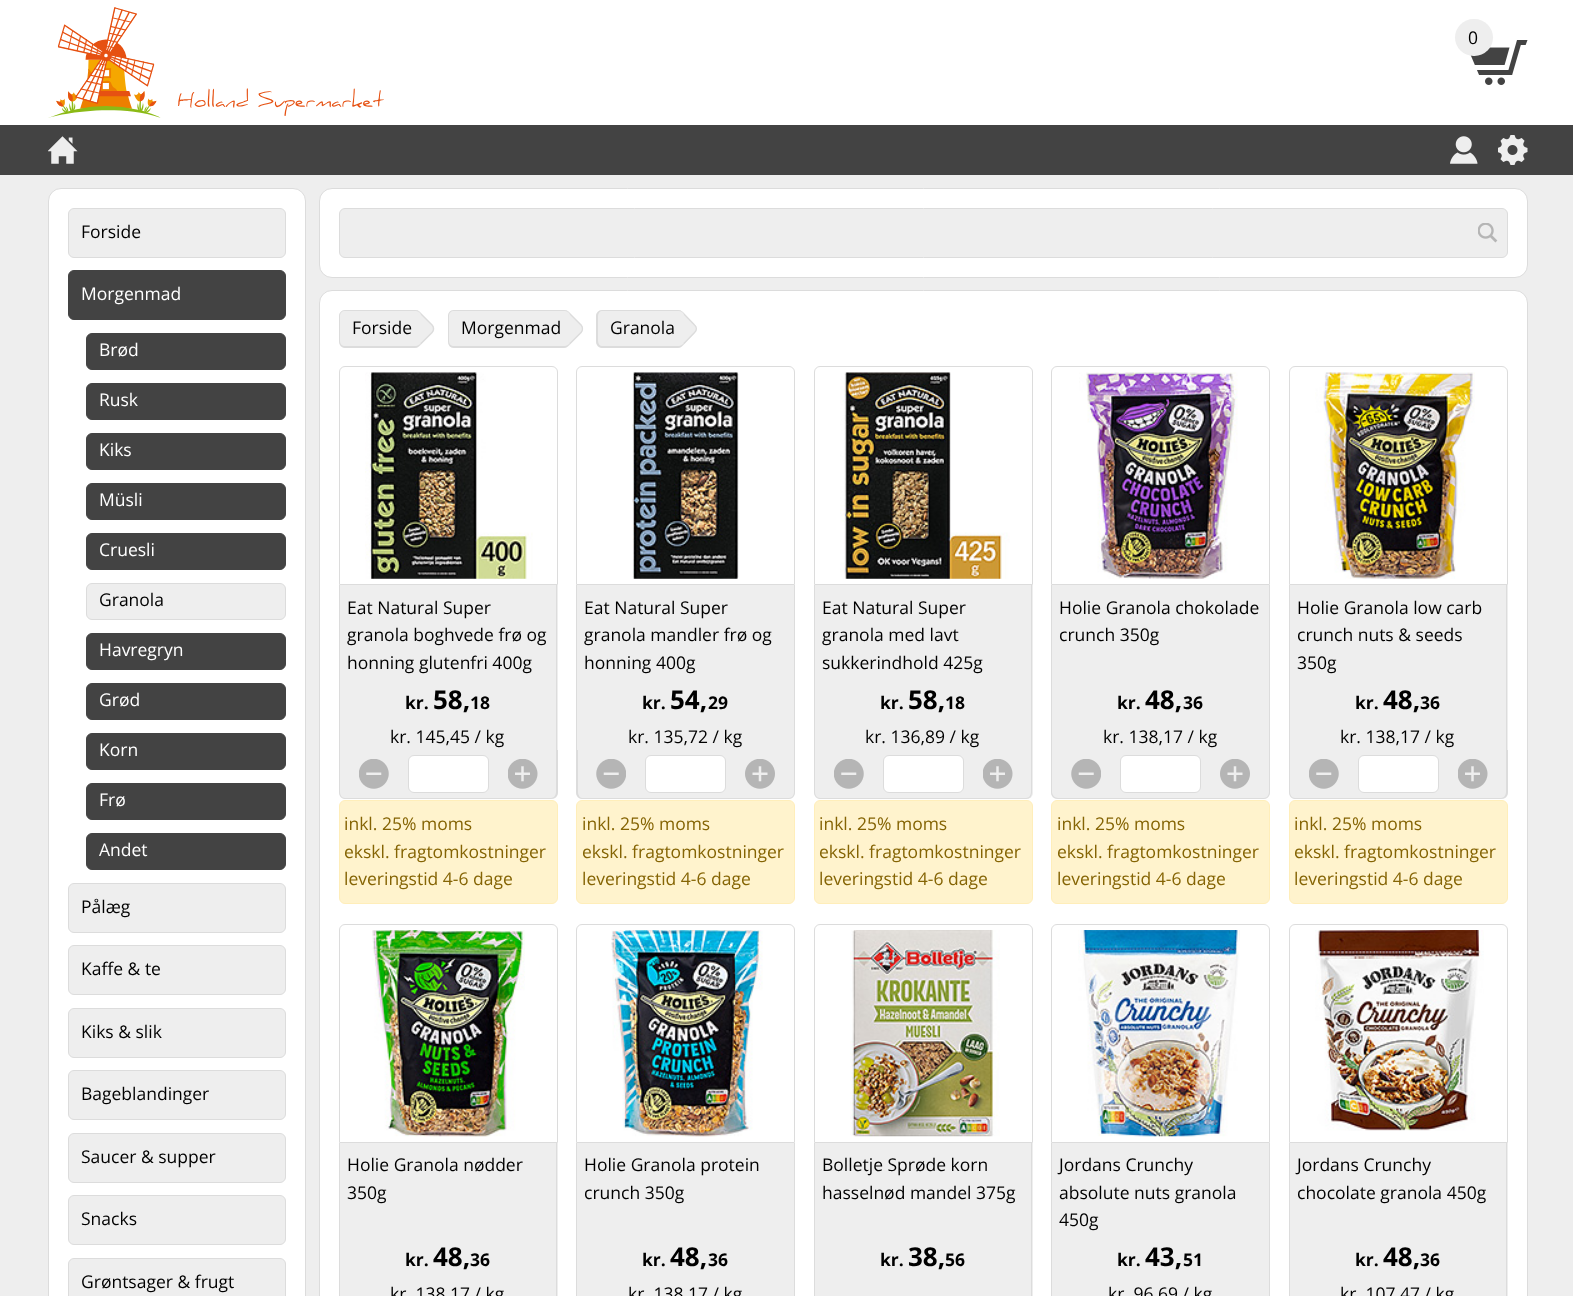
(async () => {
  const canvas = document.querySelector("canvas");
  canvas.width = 1573;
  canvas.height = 1296;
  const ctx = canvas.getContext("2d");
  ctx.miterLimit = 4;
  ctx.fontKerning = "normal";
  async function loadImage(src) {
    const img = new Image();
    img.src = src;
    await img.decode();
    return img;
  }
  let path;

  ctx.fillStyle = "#ffffff";
  ctx.fillRect(0, 0, 1573, 1296);
  ctx.drawImage(await loadImage("img/1.png"), 48, 7, 336, 111);
  ctx.drawImage(await loadImage("img/2.png"), 1470, 40, 58, 45);
  ctx.fillStyle = "#eeeeee";
  ctx.beginPath();
  ctx.roundRect(1455, 19, 38, 37, 18.5);
  ctx.fill();
  ctx.fillStyle = "#434343";
  ctx.fillRect(0, 125, 1573, 50);
  ctx.drawImage(await loadImage("img/3.png"), 48, 136, 30, 28);
  ctx.drawImage(await loadImage("img/4.png"), 1450, 136, 28, 28);
  ctx.drawImage(await loadImage("img/5.png"), 1498, 135, 30, 30);
  ctx.fillStyle = "#eeeeee";
  ctx.fillRect(0, 175, 1573, 1121);
  ctx.fillStyle = "#ffffff";
  ctx.beginPath();
  ctx.roundRect(48.5, 188.5, 257, 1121, 12.5);
  ctx.fill();
  ctx.strokeStyle = "#dcdcdc";
  ctx.stroke();
  ctx.fillStyle = "#eeeeee";
  ctx.beginPath();
  ctx.roundRect(68.5, 208.5, 217, 49, 5.5);
  ctx.fill();
  ctx.stroke();
  ctx.fillStyle = "#434343";
  ctx.beginPath();
  ctx.roundRect(68.5, 270.5, 217, 49, 5.5);
  ctx.fill();
  ctx.strokeStyle = "#434343";
  ctx.stroke();
  ctx.beginPath();
  ctx.roundRect(86.5, 333.5, 199, 36, 5.5);
  ctx.fill();
  ctx.stroke();
  ctx.beginPath();
  ctx.roundRect(86.5, 383.5, 199, 36, 5.5);
  ctx.fill();
  ctx.stroke();
  ctx.beginPath();
  ctx.roundRect(86.5, 433.5, 199, 36, 5.5);
  ctx.fill();
  ctx.stroke();
  ctx.beginPath();
  ctx.roundRect(86.5, 483.5, 199, 36, 5.5);
  ctx.fill();
  ctx.stroke();
  ctx.beginPath();
  ctx.roundRect(86.5, 533.5, 199, 36, 5.5);
  ctx.fill();
  ctx.stroke();
  ctx.fillStyle = "#eeeeee";
  ctx.beginPath();
  ctx.roundRect(86.5, 583.5, 199, 36, 5.5);
  ctx.fill();
  ctx.strokeStyle = "#dcdcdc";
  ctx.stroke();
  ctx.fillStyle = "#434343";
  ctx.beginPath();
  ctx.roundRect(86.5, 633.5, 199, 36, 5.5);
  ctx.fill();
  ctx.strokeStyle = "#434343";
  ctx.stroke();
  ctx.beginPath();
  ctx.roundRect(86.5, 683.5, 199, 36, 5.5);
  ctx.fill();
  ctx.stroke();
  ctx.beginPath();
  ctx.roundRect(86.5, 733.5, 199, 36, 5.5);
  ctx.fill();
  ctx.stroke();
  ctx.beginPath();
  ctx.roundRect(86.5, 783.5, 199, 36, 5.5);
  ctx.fill();
  ctx.stroke();
  ctx.beginPath();
  ctx.roundRect(86.5, 833.5, 199, 36, 5.5);
  ctx.fill();
  ctx.stroke();
  ctx.fillStyle = "#eeeeee";
  ctx.beginPath();
  ctx.roundRect(68.5, 883.5, 217, 49, 5.5);
  ctx.fill();
  ctx.strokeStyle = "#dcdcdc";
  ctx.stroke();
  ctx.beginPath();
  ctx.roundRect(68.5, 945.5, 217, 49, 5.5);
  ctx.fill();
  ctx.stroke();
  ctx.beginPath();
  ctx.roundRect(68.5, 1008.5, 217, 49, 5.5);
  ctx.fill();
  ctx.stroke();
  ctx.beginPath();
  ctx.roundRect(68.5, 1070.5, 217, 49, 5.5);
  ctx.fill();
  ctx.stroke();
  ctx.beginPath();
  ctx.roundRect(68.5, 1133.5, 217, 49, 5.5);
  ctx.fill();
  ctx.stroke();
  ctx.beginPath();
  ctx.roundRect(68.5, 1195.5, 217, 49, 5.5);
  ctx.fill();
  ctx.stroke();
  ctx.beginPath();
  ctx.roundRect(68.5, 1258.5, 217, 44, 5.5);
  ctx.fill();
  ctx.stroke();
  ctx.fillStyle = "#ffffff";
  ctx.beginPath();
  ctx.roundRect(319.5, 188.5, 1208, 89, 12.5);
  ctx.fill();
  ctx.stroke();
  ctx.fillStyle = "#eeeeee";
  ctx.beginPath();
  ctx.roundRect(339.5, 208.5, 1168, 49, 5.5);
  ctx.fill();
  ctx.stroke();
  ctx.drawImage(await loadImage("img/6.png"), 1478, 223, 20, 20);
  ctx.fillStyle = "#ffffff";
  ctx.beginPath();
  ctx.roundRect(319.5, 290.5, 1208, 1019, 12.5);
  ctx.fill();
  ctx.stroke();
  ctx.fillStyle = "#eeeeee";
  path = new Path2D("M420 312L432.5 324.5C435 327 435 330.5 432.5 333L420 345.5C417.5 348 413.5 348 411 345.5L399 333C396.5 330.5 396.5 327 399 324.5L411 312C413.5 309.5 417.5 309.5 420 312Z");
  ctx.fill(path);
  path = new Path2D("M419.5 312.5L432 325C434 327 434 330.5 432 332.5L419.5 345C417.5 347.5 414 347.5 411.5 345L399.5 332.5C397 330.5 397 327 399.5 325L411.5 312.5C414 310 417.5 310 419.5 312.5Z");
  ctx.lineWidth = 1.3;
  ctx.stroke(path);
  ctx.beginPath();
  ctx.roundRect(339, 310, 82, 38, 6);
  ctx.fill();
  ctx.fillStyle = "#dcdcdc";
  path = new Path2D("M345 310H415C418 310 421 313 421 316V341C421 345 418 348 415 348H345C342 348 339 345 339 341V316C339 313 342 310 345 310ZM345 311H415C418 311 421 313 421 316V341C421 344 418 346 415 346H345C342 346 340 344 340 341V316C340 313 342 311 345 311Z");
  ctx.fill(path, "evenodd");
  ctx.fillStyle = "#eeeeee";
  path = new Path2D("M569 312L581.5 324.5C583.5 327 583.5 330.5 581.5 333L569 345.5C566.5 348 562.5 348 560 345.5L547.5 333C545.5 330.5 545.5 327 547.5 324.5L560 312C562.5 309.5 566.5 309.5 569 312Z");
  ctx.fill(path);
  path = new Path2D("M568.5 312.5L581 325C583 327 583 330.5 581 332.5L568.5 345C566.5 347.5 562.5 347.5 560.5 345L548 332.5C546 330.5 546 327 548 325L560.5 312.5C562.5 310 566.5 310 568.5 312.5Z");
  ctx.stroke(path);
  ctx.beginPath();
  ctx.roundRect(448, 310, 122, 38, 6);
  ctx.fill();
  ctx.fillStyle = "#dcdcdc";
  path = new Path2D("M454 310H564C567 310 570 313 570 316V341C570 345 567 348 564 348H454C450 348 448 345 448 341V316C448 313 450 310 454 310ZM454 311H564C567 311 570 313 570 316V341C570 344 567 346 564 346H454C451 346 449 344 449 341V316C449 313 451 311 454 311Z");
  ctx.fill(path, "evenodd");
  ctx.fillStyle = "#eeeeee";
  path = new Path2D("M682.5 312L695 324.5C697.5 327 697.5 330.5 695 333L682.5 345.5C680.5 348 676.5 348 674 345.5L661.5 333C659 330.5 659 327 661.5 324.5L674 312C676.5 309.5 680.5 309.5 682.5 312Z");
  ctx.fill(path);
  path = new Path2D("M682.5 312.5L694.5 325C697 327 697 330.5 694.5 332.5L682.5 345C680 347.5 676.5 347.5 674.5 345L662 332.5C659.5 330.5 659.5 327 662 325L674.5 312.5C676.5 310 680 310 682.5 312.5Z");
  ctx.stroke(path);
  ctx.beginPath();
  ctx.roundRect(596, 310, 88, 38, 6);
  ctx.fill();
  ctx.fillStyle = "#dcdcdc";
  path = new Path2D("M602 310H678C681 310 684 313 684 316V341C684 345 681 348 678 348H602C599 348 596 345 596 341V316C596 313 599 310 602 310ZM602 311H678C681 311 684 313 684 316V341C684 344 681 346 678 346H602C600 346 598 344 598 341V316C598 313 600 311 602 311Z");
  ctx.fill(path, "evenodd");
  ctx.beginPath();
  ctx.roundRect(339.5, 366.5, 218, 218, [5.5, 5.5, 0, 0]);
  ctx.lineWidth = 1;
  ctx.stroke();
  ctx.drawImage(await loadImage("img/7.png"), 365, 372, 168, 207);
  for (const [x, y, w, h, color] of [
    [340, 585, 218, 165, "#eeeeee"],
    [556, 585, 1, 165, "#dcdcdc"],
    [339, 585, 1, 165, "#dcdcdc"],
  ]) {
    ctx.fillStyle = color;
    ctx.fillRect(x, y, w, h);
  }
  ctx.fillStyle = "#eeeeee";
  ctx.beginPath();
  ctx.roundRect(339, 750, 219, 49, [0, 0, 6, 6]);
  ctx.fill();
  ctx.fillStyle = "#dcdcdc";
  path = new Path2D("M339 750H558V792C558 796 555 799 551 799H345C342 799 339 796 339 792ZM340 750H556V792C556 795 554 798 551 798H345C342 798 340 795 340 792Z");
  ctx.fill(path, "evenodd");
  ctx.drawImage(await loadImage("img/8.png"), 359, 759, 30, 30);
  ctx.fillStyle = "#ffffff";
  ctx.beginPath();
  ctx.roundRect(408.5, 755.5, 80, 37, 5.5);
  ctx.fill();
  ctx.stroke();
  ctx.drawImage(await loadImage("img/9.png"), 508, 759, 30, 30);
  ctx.fillStyle = "#fff3cd";
  ctx.beginPath();
  ctx.roundRect(339.5, 800.5, 218, 103, 5.5);
  ctx.fill();
  ctx.strokeStyle = "#ffeeba";
  ctx.stroke();
  ctx.beginPath();
  ctx.roundRect(576.5, 366.5, 218, 218, [5.5, 5.5, 0, 0]);
  ctx.strokeStyle = "#dcdcdc";
  ctx.stroke();
  ctx.drawImage(await loadImage("img/10.png"), 632, 372, 107, 207);
  for (const [x, y, w, h, color] of [
    [577, 585, 217, 165, "#eeeeee"],
    [794, 585, 1, 165, "#dcdcdc"],
    [576, 585, 1, 165, "#dcdcdc"],
  ]) {
    ctx.fillStyle = color;
    ctx.fillRect(x, y, w, h);
  }
  ctx.fillStyle = "#eeeeee";
  ctx.beginPath();
  ctx.roundRect(576, 750, 219, 49, [0, 0, 6, 6]);
  ctx.fill();
  ctx.fillStyle = "#dcdcdc";
  path = new Path2D("M576 750H795V792C795 796 792 799 789 799H582C579 799 576 796 576 792ZM578 750H794V792C794 795 792 798 789 798H582C580 798 578 795 578 792Z");
  ctx.fill(path, "evenodd");
  ctx.drawImage(await loadImage("img/11.png"), 596, 759, 30, 30);
  ctx.fillStyle = "#ffffff";
  ctx.beginPath();
  ctx.roundRect(645.5, 755.5, 80, 37, 5.5);
  ctx.fill();
  ctx.stroke();
  ctx.drawImage(await loadImage("img/12.png"), 745, 759, 30, 30);
  ctx.fillStyle = "#fff3cd";
  ctx.beginPath();
  ctx.roundRect(576.5, 800.5, 218, 103, 5.5);
  ctx.fill();
  ctx.strokeStyle = "#ffeeba";
  ctx.stroke();
  ctx.beginPath();
  ctx.roundRect(814.5, 366.5, 218, 218, [5.5, 5.5, 0, 0]);
  ctx.strokeStyle = "#dcdcdc";
  ctx.stroke();
  ctx.drawImage(await loadImage("img/13.png"), 840, 372, 170, 207);
  for (const [x, y, w, h, color] of [
    [815, 585, 218, 165, "#eeeeee"],
    [1031, 585, 1, 165, "#dcdcdc"],
    [814, 585, 1, 165, "#dcdcdc"],
  ]) {
    ctx.fillStyle = color;
    ctx.fillRect(x, y, w, h);
  }
  ctx.fillStyle = "#eeeeee";
  ctx.beginPath();
  ctx.roundRect(814, 750, 219, 49, [0, 0, 6, 6]);
  ctx.fill();
  ctx.fillStyle = "#dcdcdc";
  path = new Path2D("M814 750H1032V792C1032 796 1030 799 1026 799H820C817 799 814 796 814 792ZM815 750H1031V792C1031 795 1029 798 1026 798H820C817 798 815 795 815 792Z");
  ctx.fill(path, "evenodd");
  ctx.drawImage(await loadImage("img/8.png"), 834, 759, 30, 30);
  ctx.fillStyle = "#ffffff";
  ctx.beginPath();
  ctx.roundRect(883.5, 755.5, 80, 37, 5.5);
  ctx.fill();
  ctx.stroke();
  ctx.drawImage(await loadImage("img/9.png"), 983, 759, 30, 30);
  ctx.fillStyle = "#fff3cd";
  ctx.beginPath();
  ctx.roundRect(814.5, 800.5, 218, 103, 5.5);
  ctx.fill();
  ctx.strokeStyle = "#ffeeba";
  ctx.stroke();
  ctx.beginPath();
  ctx.roundRect(1051.5, 366.5, 218, 218, [5.5, 5.5, 0, 0]);
  ctx.strokeStyle = "#dcdcdc";
  ctx.stroke();
  ctx.drawImage(await loadImage("img/14.png"), 1079, 372, 159, 207);
  for (const [x, y, w, h, color] of [
    [1052, 585, 217, 165, "#eeeeee"],
    [1269, 585, 1, 165, "#dcdcdc"],
    [1051, 585, 1, 165, "#dcdcdc"],
  ]) {
    ctx.fillStyle = color;
    ctx.fillRect(x, y, w, h);
  }
  ctx.fillStyle = "#eeeeee";
  ctx.beginPath();
  ctx.roundRect(1051, 750, 219, 49, [0, 0, 6, 6]);
  ctx.fill();
  ctx.fillStyle = "#dcdcdc";
  path = new Path2D("M1051 750H1270V792C1270 796 1267 799 1264 799H1058C1054 799 1051 796 1051 792ZM1052 750H1269V792C1269 795 1267 798 1264 798H1058C1055 798 1052 795 1052 792Z");
  ctx.fill(path, "evenodd");
  ctx.drawImage(await loadImage("img/11.png"), 1071, 759, 30, 30);
  ctx.fillStyle = "#ffffff";
  ctx.beginPath();
  ctx.roundRect(1120.5, 755.5, 80, 37, 5.5);
  ctx.fill();
  ctx.stroke();
  ctx.drawImage(await loadImage("img/12.png"), 1220, 759, 30, 30);
  ctx.fillStyle = "#fff3cd";
  ctx.beginPath();
  ctx.roundRect(1051.5, 800.5, 218, 103, 5.5);
  ctx.fill();
  ctx.strokeStyle = "#ffeeba";
  ctx.stroke();
  ctx.beginPath();
  ctx.roundRect(1289.5, 366.5, 218, 218, [5.5, 5.5, 0, 0]);
  ctx.strokeStyle = "#dcdcdc";
  ctx.stroke();
  ctx.drawImage(await loadImage("img/15.png"), 1315, 372, 160, 207);
  for (const [x, y, w, h, color] of [
    [1290, 585, 218, 165, "#eeeeee"],
    [1506, 585, 1, 165, "#dcdcdc"],
    [1289, 585, 1, 165, "#dcdcdc"],
  ]) {
    ctx.fillStyle = color;
    ctx.fillRect(x, y, w, h);
  }
  ctx.fillStyle = "#eeeeee";
  ctx.beginPath();
  ctx.roundRect(1289, 750, 219, 49, [0, 0, 6, 6]);
  ctx.fill();
  ctx.fillStyle = "#dcdcdc";
  path = new Path2D("M1289 750H1508V792C1508 796 1505 799 1501 799H1295C1292 799 1289 796 1289 792ZM1290 750H1506V792C1506 795 1504 798 1501 798H1295C1292 798 1290 795 1290 792Z");
  ctx.fill(path, "evenodd");
  ctx.drawImage(await loadImage("img/8.png"), 1309, 759, 30, 30);
  ctx.fillStyle = "#ffffff";
  ctx.beginPath();
  ctx.roundRect(1358.5, 755.5, 80, 37, 5.5);
  ctx.fill();
  ctx.stroke();
  ctx.drawImage(await loadImage("img/9.png"), 1458, 759, 30, 30);
  ctx.fillStyle = "#fff3cd";
  ctx.beginPath();
  ctx.roundRect(1289.5, 800.5, 218, 103, 5.5);
  ctx.fill();
  ctx.strokeStyle = "#ffeeba";
  ctx.stroke();
  ctx.beginPath();
  ctx.roundRect(339.5, 924.5, 218, 218, [5.5, 5.5, 0, 0]);
  ctx.strokeStyle = "#dcdcdc";
  ctx.stroke();
  ctx.drawImage(await loadImage("img/16.png"), 372, 930, 153, 207);
  for (const [x, y, w, h, color] of [
    [340, 1143, 218, 153, "#eeeeee"],
    [556, 1143, 1, 153, "#dcdcdc"],
    [339, 1143, 1, 153, "#dcdcdc"],
  ]) {
    ctx.fillStyle = color;
    ctx.fillRect(x, y, w, h);
  }
  ctx.beginPath();
  ctx.roundRect(576.5, 924.5, 218, 218, [5.5, 5.5, 0, 0]);
  ctx.stroke();
  ctx.drawImage(await loadImage("img/17.png"), 611, 930, 152, 207);
  for (const [x, y, w, h, color] of [
    [577, 1143, 217, 153, "#eeeeee"],
    [794, 1143, 1, 153, "#dcdcdc"],
    [576, 1143, 1, 153, "#dcdcdc"],
  ]) {
    ctx.fillStyle = color;
    ctx.fillRect(x, y, w, h);
  }
  ctx.beginPath();
  ctx.roundRect(814.5, 924.5, 218, 218, [5.5, 5.5, 0, 0]);
  ctx.stroke();
  ctx.drawImage(await loadImage("img/18.png"), 850, 930, 150, 207);
  for (const [x, y, w, h, color] of [
    [815, 1143, 218, 153, "#eeeeee"],
    [1031, 1143, 1, 153, "#dcdcdc"],
    [814, 1143, 1, 153, "#dcdcdc"],
  ]) {
    ctx.fillStyle = color;
    ctx.fillRect(x, y, w, h);
  }
  ctx.beginPath();
  ctx.roundRect(1051.5, 924.5, 218, 218, [5.5, 5.5, 0, 0]);
  ctx.stroke();
  ctx.drawImage(await loadImage("img/19.png"), 1078, 930, 162, 207);
  for (const [x, y, w, h, color] of [
    [1052, 1143, 217, 153, "#eeeeee"],
    [1269, 1143, 1, 153, "#dcdcdc"],
    [1051, 1143, 1, 153, "#dcdcdc"],
  ]) {
    ctx.fillStyle = color;
    ctx.fillRect(x, y, w, h);
  }
  ctx.beginPath();
  ctx.roundRect(1289.5, 924.5, 218, 218, [5.5, 5.5, 0, 0]);
  ctx.stroke();
  ctx.drawImage(await loadImage("img/20.png"), 1315, 930, 169, 201);
  for (const [x, y, w, h, color] of [
    [1290, 1143, 218, 153, "#eeeeee"],
    [1506, 1143, 1, 153, "#dcdcdc"],
    [1289, 1143, 1, 153, "#dcdcdc"],
  ]) {
    ctx.fillStyle = color;
    ctx.fillRect(x, y, w, h);
  }
  ctx.font = "17.5px Open Sans";
  ctx.fillStyle = "#000000";
  ctx.fillText("0", 1468, 44);
  ctx.fillText("Forside", 81, 238);
  ctx.fillStyle = "#ffffff";
  for (const [text, x, y] of [
    ["Morgenmad", 81, 300],
    ["Brød", 99, 356],
    ["Rusk", 99, 406],
    ["Kiks", 99, 456],
    ["Müsli", 99, 506],
    ["Cruesli", 99, 556],
  ]) {
    ctx.fillText(text, x, y);
  }
  ctx.fillStyle = "#000000";
  ctx.fillText("Granola", 99, 606);
  ctx.fillStyle = "#ffffff";
  for (const [text, x, y] of [
    ["Havregryn", 99, 656],
    ["Grød", 99, 706],
    ["Korn", 99, 756],
    ["Frø", 99, 806],
    ["Andet", 99, 856],
  ]) {
    ctx.fillText(text, x, y);
  }
  ctx.fillStyle = "#000000";
  for (const [text, x, y] of [
    ["Pålæg", 81, 913],
    ["Kaffe & te", 81, 975],
    ["Kiks & slik", 81, 1038],
    ["Bageblandinger", 81, 1100],
    ["Saucer & supper", 81, 1163],
    ["Snacks", 81, 1225],
    ["Grøntsager & frugt", 81, 1288],
    ["Forside", 352, 334],
    ["Morgenmad", 461, 334],
    ["Granola", 610, 334],
    ["Eat Natural Super", 347, 614],
    ["granola boghvede frø og", 347, 641],
    ["honning glutenfri 400g", 347, 669],
  ]) {
    ctx.fillText(text, x, y);
  }
  ctx.font = "bold 17.5px Open Sans";
  ctx.fillText("kr.", 405, 709);
  ctx.font = "bold 26px Open Sans";
  ctx.fillText("58,", 433, 709);
  ctx.font = "bold 17.5px Open Sans";
  ctx.fillText("18", 470, 709);
  ctx.font = "17.5px Open Sans";
  ctx.fillText("kr. 145,45 / kg", 390, 743);
  ctx.fillStyle = "#856404";
  for (const [text, x, y] of [
    ["inkl. 25% moms", 344, 830],
    ["ekskl. fragtomkostninger", 344, 858],
    ["leveringstid 4-6 dage", 344, 885],
  ]) {
    ctx.fillText(text, x, y);
  }
  ctx.fillStyle = "#000000";
  for (const [text, x, y] of [
    ["Eat Natural Super", 584, 614],
    ["granola mandler frø og", 584, 641],
    ["honning 400g", 584, 669],
  ]) {
    ctx.fillText(text, x, y);
  }
  ctx.font = "bold 17.5px Open Sans";
  ctx.fillText("kr.", 642, 709);
  ctx.font = "bold 26px Open Sans";
  ctx.fillText("54,", 670, 709);
  ctx.font = "bold 17.5px Open Sans";
  ctx.fillText("29", 708, 709);
  ctx.font = "17.5px Open Sans";
  ctx.fillText("kr. 135,72 / kg", 628, 743);
  ctx.fillStyle = "#856404";
  for (const [text, x, y] of [
    ["inkl. 25% moms", 582, 830],
    ["ekskl. fragtomkostninger", 582, 858],
    ["leveringstid 4-6 dage", 582, 885],
  ]) {
    ctx.fillText(text, x, y);
  }
  ctx.fillStyle = "#000000";
  for (const [text, x, y] of [
    ["Eat Natural Super", 822, 614],
    ["granola med lavt", 822, 641],
    ["sukkerindhold 425g", 822, 669],
  ]) {
    ctx.fillText(text, x, y);
  }
  ctx.font = "bold 17.5px Open Sans";
  ctx.fillText("kr.", 880, 709);
  ctx.font = "bold 26px Open Sans";
  ctx.fillText("58,", 908, 709);
  ctx.font = "bold 17.5px Open Sans";
  ctx.fillText("18", 945, 709);
  ctx.font = "17.5px Open Sans";
  ctx.fillText("kr. 136,89 / kg", 865, 743);
  ctx.fillStyle = "#856404";
  for (const [text, x, y] of [
    ["inkl. 25% moms", 819, 830],
    ["ekskl. fragtomkostninger", 819, 858],
    ["leveringstid 4-6 dage", 819, 885],
  ]) {
    ctx.fillText(text, x, y);
  }
  ctx.fillStyle = "#000000";
  ctx.fillText("Holie Granola chokolade", 1059, 614);
  ctx.fillText("crunch 350g", 1059, 641);
  ctx.font = "bold 17.5px Open Sans";
  ctx.fillText("kr.", 1117, 709);
  ctx.font = "bold 26px Open Sans";
  ctx.fillText("48,", 1145, 709);
  ctx.font = "bold 17.5px Open Sans";
  ctx.fillText("36", 1183, 709);
  ctx.font = "17.5px Open Sans";
  ctx.fillText("kr. 138,17 / kg", 1103, 743);
  ctx.fillStyle = "#856404";
  for (const [text, x, y] of [
    ["inkl. 25% moms", 1057, 830],
    ["ekskl. fragtomkostninger", 1057, 858],
    ["leveringstid 4-6 dage", 1057, 885],
  ]) {
    ctx.fillText(text, x, y);
  }
  ctx.fillStyle = "#000000";
  for (const [text, x, y] of [
    ["Holie Granola low carb", 1297, 614],
    ["crunch nuts & seeds", 1297, 641],
    ["350g", 1297, 669],
  ]) {
    ctx.fillText(text, x, y);
  }
  ctx.font = "bold 17.5px Open Sans";
  ctx.fillText("kr.", 1355, 709);
  ctx.font = "bold 26px Open Sans";
  ctx.fillText("48,", 1383, 709);
  ctx.font = "bold 17.5px Open Sans";
  ctx.fillText("36", 1420, 709);
  ctx.font = "17.5px Open Sans";
  ctx.fillText("kr. 138,17 / kg", 1340, 743);
  ctx.fillStyle = "#856404";
  for (const [text, x, y] of [
    ["inkl. 25% moms", 1294, 830],
    ["ekskl. fragtomkostninger", 1294, 858],
    ["leveringstid 4-6 dage", 1294, 885],
  ]) {
    ctx.fillText(text, x, y);
  }
  ctx.fillStyle = "#000000";
  ctx.fillText("Holie Granola nødder", 347, 1171);
  ctx.fillText("350g", 347, 1199);
  ctx.font = "bold 17.5px Open Sans";
  ctx.fillText("kr.", 405, 1266);
  ctx.font = "bold 26px Open Sans";
  ctx.fillText("48,", 433, 1266);
  ctx.font = "bold 17.5px Open Sans";
  ctx.fillText("36", 470, 1266);
  ctx.font = "17.5px Open Sans";
  for (const [text, x, y] of [
    ["kr. 138,17 / kg", 390, 1300],
    ["Holie Granola protein", 584, 1171],
    ["crunch 350g", 584, 1199],
  ]) {
    ctx.fillText(text, x, y);
  }
  ctx.font = "bold 17.5px Open Sans";
  ctx.fillText("kr.", 642, 1266);
  ctx.font = "bold 26px Open Sans";
  ctx.fillText("48,", 670, 1266);
  ctx.font = "bold 17.5px Open Sans";
  ctx.fillText("36", 708, 1266);
  ctx.font = "17.5px Open Sans";
  for (const [text, x, y] of [
    ["kr. 138,17 / kg", 628, 1300],
    ["Bolletje Sprøde korn", 822, 1171],
    ["hasselnød mandel 375g", 822, 1199],
  ]) {
    ctx.fillText(text, x, y);
  }
  ctx.font = "bold 17.5px Open Sans";
  ctx.fillText("kr.", 880, 1266);
  ctx.font = "bold 26px Open Sans";
  ctx.fillText("38,", 908, 1266);
  ctx.font = "bold 17.5px Open Sans";
  ctx.fillText("56", 945, 1266);
  ctx.font = "17.5px Open Sans";
  for (const [text, x, y] of [
    ["Jordans Crunchy", 1059, 1171],
    ["absolute nuts granola", 1059, 1199],
    ["450g", 1059, 1226],
  ]) {
    ctx.fillText(text, x, y);
  }
  ctx.font = "bold 17.5px Open Sans";
  ctx.fillText("kr.", 1117, 1266);
  ctx.font = "bold 26px Open Sans";
  ctx.fillText("43,", 1145, 1266);
  ctx.font = "bold 17.5px Open Sans";
  ctx.fillText("51", 1183, 1266);
  ctx.font = "17.5px Open Sans";
  for (const [text, x, y] of [
    ["kr. 96,69 / kg", 1108, 1300],
    ["Jordans Crunchy", 1297, 1171],
    ["chocolate granola 450g", 1297, 1199],
  ]) {
    ctx.fillText(text, x, y);
  }
  ctx.font = "bold 17.5px Open Sans";
  ctx.fillText("kr.", 1355, 1266);
  ctx.font = "bold 26px Open Sans";
  ctx.fillText("48,", 1383, 1266);
  ctx.font = "bold 17.5px Open Sans";
  ctx.fillText("36", 1420, 1266);
  ctx.font = "17.5px Open Sans";
  ctx.fillText("kr. 107,47 / kg", 1340, 1300);
})();
